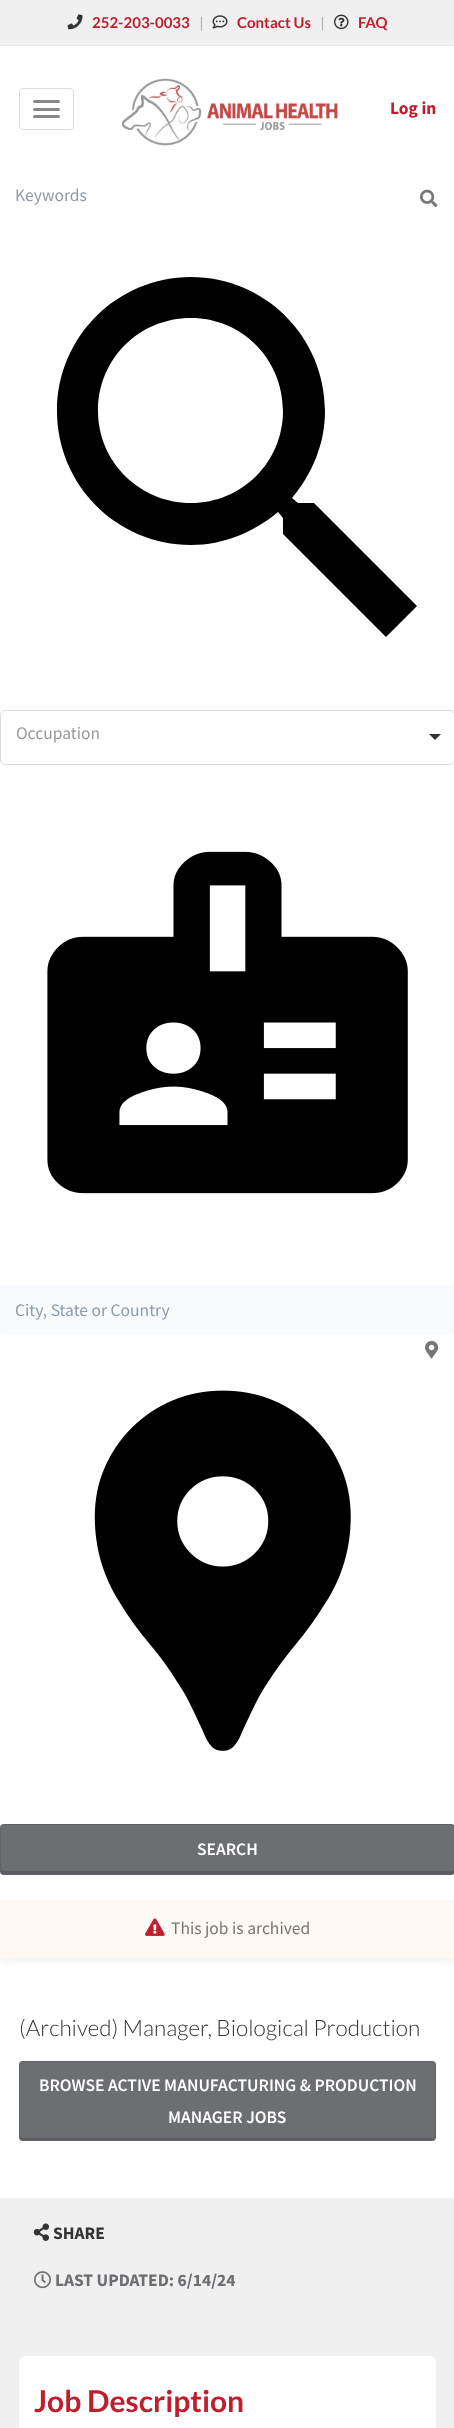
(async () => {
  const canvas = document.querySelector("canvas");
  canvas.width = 454;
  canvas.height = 2428;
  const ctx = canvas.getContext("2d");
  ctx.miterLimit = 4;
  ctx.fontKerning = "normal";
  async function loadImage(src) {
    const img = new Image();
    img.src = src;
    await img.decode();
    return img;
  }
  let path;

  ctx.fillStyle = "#f0f0f0";
  ctx.fillRect(0, 0, 454, 2428);
  ctx.fillStyle = "#ebeaeb";
  ctx.fillRect(0, 45, 454, 1);
  ctx.drawImage(await loadImage("img/1.png"), 67, 14, 16, 16);
  ctx.drawImage(await loadImage("img/2.png"), 212, 15, 16, 14);
  ctx.drawImage(await loadImage("img/3.png"), 334, 14, 15, 16);
  ctx.fillStyle = "#ffffff";
  ctx.fillRect(0, 1958, 454, 240);
  ctx.fillStyle = "rgba(0, 0, 0, 0.1)";
  ctx.filter = "blur(6px)";
  ctx.beginPath();
  ctx.rect(0, 1900, 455, 58);
  ctx.fill();
  ctx.filter = "none";
  ctx.fillStyle = "#ffffff";
  ctx.fillRect(0, 46, 454, 1854);
  ctx.beginPath();
  ctx.roundRect(19.5, 88.5, 54, 41, 3.5);
  ctx.strokeStyle = "#dddddd";
  ctx.stroke();
  ctx.fillStyle = "#888888";
  ctx.beginPath();
  ctx.roundRect(33, 100, 27, 3, 1.5);
  ctx.fill();
  ctx.beginPath();
  ctx.roundRect(33, 108, 27, 3, 1.5);
  ctx.fill();
  ctx.beginPath();
  ctx.roundRect(33, 115, 27, 3, 1.5);
  ctx.fill();
  ctx.drawImage(await loadImage("img/4.png"), 121, 78, 217, 68);
  ctx.drawImage(await loadImage("img/5.png"), 420, 189, 18, 19);
  ctx.fillStyle = "#000000";
  path = new Path2D("M314 503H298L292 498C312 474 325 444 325 411C325 337 265 277 191 277C117 277 57 337 57 411C57 485 117 545 191 545C224 545 254 532 278 512L283 518V534L386 637L417 606ZM191 503C140 503 98 462 98 411C98 359 139 318 191 318C242 318 283 359 283 411C283 462 242 503 191 503Z");
  ctx.fill(path);
  ctx.beginPath();
  ctx.roundRect(0.5, 710.5, 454, 54, 4.5);
  ctx.stroke();
  ctx.fillStyle = "#333333";
  path = new Path2D("M429 734H441L435 740Z");
  ctx.fill(path);
  ctx.drawImage(await loadImage("img/6.png"), 47, 851, 361, 343);
  ctx.fillStyle = "#f8fafd";
  ctx.beginPath();
  ctx.roundRect(0, 1285, 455, 49, 4);
  ctx.fill();
  ctx.drawImage(await loadImage("img/7.png"), 425, 1340, 14, 19);
  ctx.drawImage(await loadImage("img/8.png"), 94, 1390, 257, 361);
  ctx.fillStyle = "#6d6e72";
  ctx.beginPath();
  ctx.roundRect(0, 1824, 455, 51, 4);
  ctx.fill();
  ctx.fillStyle = "#5d5e61";
  path = new Path2D("M1 1869V1872C1 1873 2 1874 4 1874H452C453 1874 454 1873 454 1872V1869C454 1870 453 1871 451 1871H4C2 1871 1 1870 1 1869Z");
  ctx.fill(path);
  ctx.beginPath();
  ctx.roundRect(0.5, 1824.5, 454, 50, 3.5);
  ctx.strokeStyle = "rgba(0, 0, 0, 0.1)";
  ctx.stroke();
  ctx.fillStyle = "#fff9f5";
  ctx.fillRect(0, 1900, 454, 58);
  ctx.drawImage(await loadImage("img/9.png"), 145, 1918, 20, 18);
  ctx.fillStyle = "#6d6e72";
  ctx.beginPath();
  ctx.roundRect(19, 2061, 417, 80, 4);
  ctx.fill();
  ctx.fillStyle = "#5d5e61";
  path = new Path2D("M20 2135C20 2137 20 2140 22 2140H432C435 2140 435 2137 435 2135C435 2136 434 2138 432 2138H22C21 2138 20 2136 20 2135Z");
  ctx.fill(path);
  ctx.beginPath();
  ctx.roundRect(19.5, 2061.5, 416, 79, 3.5);
  ctx.stroke();
  ctx.drawImage(await loadImage("img/10.png"), 33, 2223, 16, 18);
  ctx.drawImage(await loadImage("img/11.png"), 34, 2271, 17, 18);
  ctx.fillStyle = "#ffffff";
  ctx.beginPath();
  ctx.roundRect(19, 2356, 417, 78, 6);
  ctx.fill();
  ctx.font = "bold 15px Lato";
  ctx.fillStyle = "#bf1e2d";
  ctx.fillText("252-203-0033", 92, 28);
  ctx.font = "300 15px Lato";
  ctx.fillStyle = "#777777";
  ctx.fillText("|", 199, 28);
  ctx.font = "bold 15px Lato";
  ctx.fillStyle = "#bf1e2d";
  ctx.fillText("Contact Us", 237, 28);
  ctx.font = "300 15px Lato";
  ctx.fillStyle = "#777777";
  ctx.fillText("|", 320, 28);
  ctx.font = "bold 15px Lato";
  ctx.fillStyle = "#bf1e2d";
  ctx.fillText("FAQ", 358, 28);
  ctx.font = "bold 17.5px Source Sans Pro";
  ctx.fillText("Log in", 390, 114);
  ctx.font = "17.5px Source Sans Pro";
  ctx.fillStyle = "#8e9bad";
  ctx.fillText("Keywords", 15, 201);
  ctx.fillStyle = "#99999a";
  ctx.fillText("Occupation", 16, 739);
  ctx.fillStyle = "#8e9bad";
  ctx.fillText("City, State or Country", 15, 1316);
  ctx.font = "600 17.5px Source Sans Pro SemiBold";
  ctx.fillStyle = "#ffffff";
  ctx.fillText("SEARCH", 197, 1855);
  ctx.font = "17.5px Source Sans Pro";
  ctx.fillStyle = "#777777";
  ctx.fillText("This job is archived", 171, 1934);
  ctx.font = "300 22.5px Lato";
  ctx.fillStyle = "#333335";
  ctx.fillText("(Archived) Manager, Biological Production", 19, 2036);
  ctx.font = "600 17.5px Source Sans Pro SemiBold";
  ctx.fillStyle = "#ffffff";
  ctx.fillText("BROWSE ACTIVE MANUFACTURING & PRODUCTION", 39, 2091);
  ctx.fillText("MANAGER JOBS", 168, 2123);
  ctx.font = "bold 17.5px Source Sans Pro";
  ctx.fillStyle = "#333335";
  ctx.fillText("SHARE", 53, 2239);
  ctx.fillStyle = "#6d6e72";
  ctx.fillText("LAST UPDATED: 6/14/24", 55, 2286);
  ctx.font = "bold 30px Lato";
  ctx.fillStyle = "#bf1e2d";
  ctx.fillText("Job Description", 34, 2412);
})();
